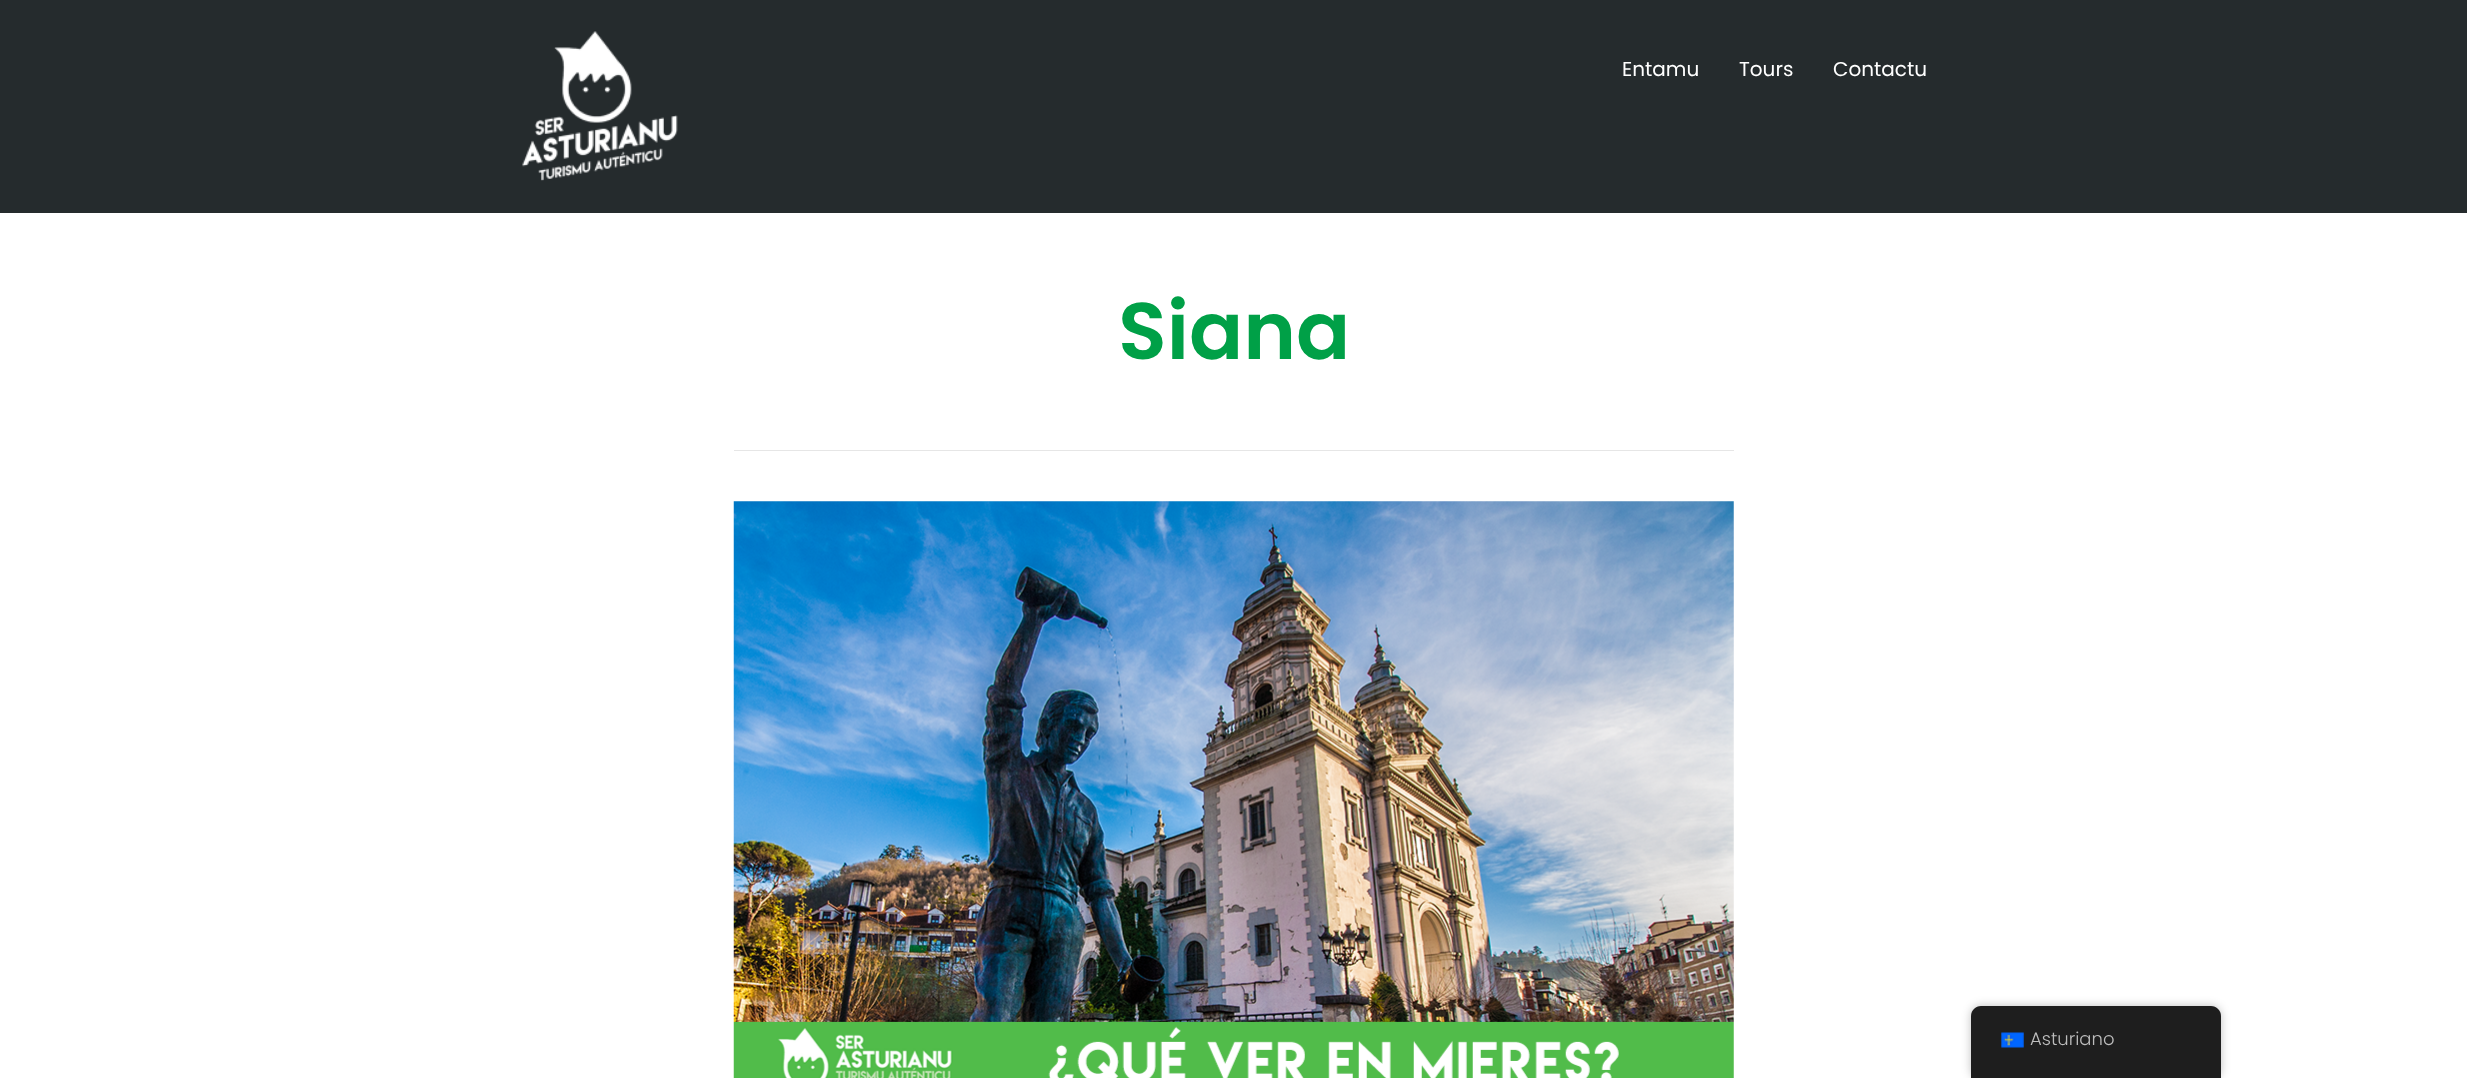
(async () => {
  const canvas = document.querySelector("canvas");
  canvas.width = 2467;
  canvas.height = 1078;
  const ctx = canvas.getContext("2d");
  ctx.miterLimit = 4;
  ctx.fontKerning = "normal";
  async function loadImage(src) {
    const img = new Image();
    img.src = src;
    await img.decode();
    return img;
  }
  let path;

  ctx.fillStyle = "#ffffff";
  ctx.fillRect(0, 0, 2467, 1078);
  ctx.fillStyle = "#252b2d";
  ctx.fillRect(0, 0, 2467, 213);
  ctx.drawImage(await loadImage("img/1.png"), 522, 31, 156, 150);
  ctx.fillStyle = "#e6e6e6";
  ctx.fillRect(734, 450, 1000, 1);
  ctx.drawImage(await loadImage("img/2.png"), 733, 501, 1001, 577);
  ctx.fillStyle = "rgba(0, 0, 0, 0.25)";
  ctx.filter = "blur(5px)";
  ctx.beginPath();
  ctx.roundRect(1971, 1006, 250, 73, 10);
  ctx.fill();
  ctx.filter = "none";
  ctx.fillStyle = "#1e1e1e";
  path = new Path2D("M1981 1006H2211C2216.5 1006 2221 1010.5 2221 1016V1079H1971V1016C1971 1010.5 1975.5 1006 1981 1006Z");
  ctx.fill(path);
  ctx.drawImage(await loadImage("img/3.png"), 2001, 1032, 23, 16);
  ctx.font = "20px Poppins";
  ctx.fillStyle = "#ffffff";
  for (const [text, x, y] of [
    ["Entamu", 1622, 76],
    ["Tours", 1739, 76],
    ["Contactu", 1833, 76],
  ]) {
    ctx.fillText(text, x, y);
  }
  ctx.font = "600 80px Poppins";
  ctx.fillStyle = "#00a047";
  ctx.fillText("Siana", 1118, 359);
  ctx.font = "300 18px Poppins";
  ctx.fillStyle = "#bdbdbd";
  ctx.fillText("Asturiano", 2030, 1045);
})();
